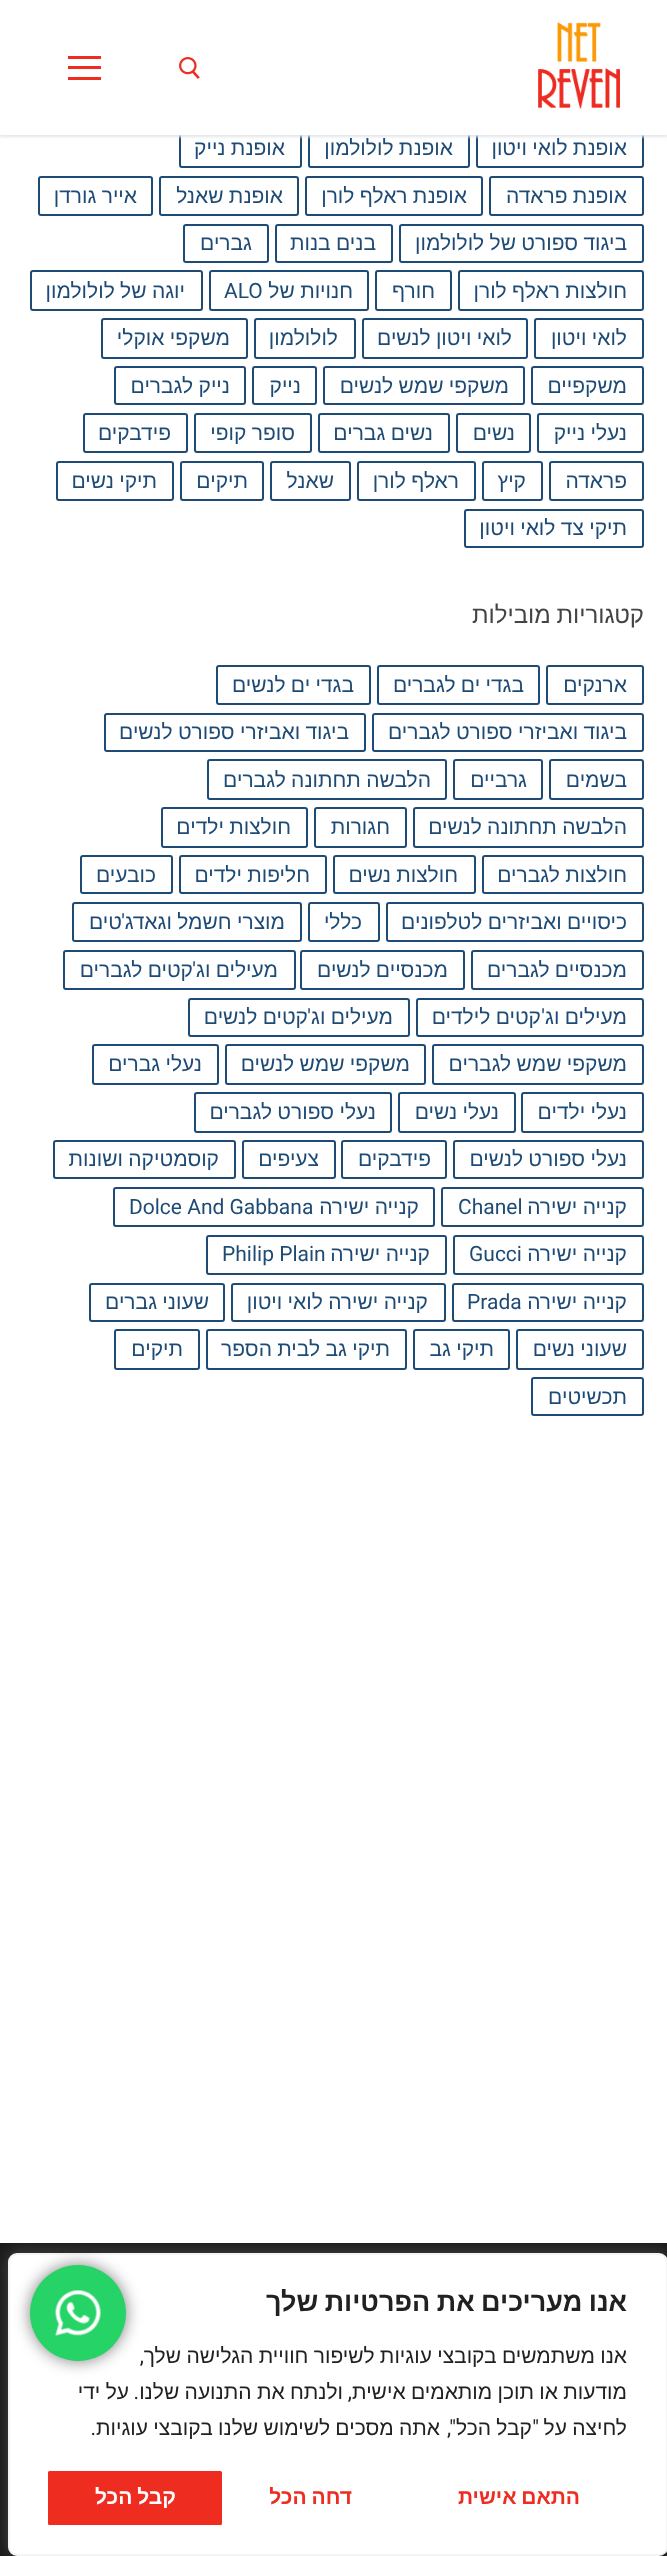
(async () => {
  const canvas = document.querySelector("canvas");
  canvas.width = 667;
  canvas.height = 2556;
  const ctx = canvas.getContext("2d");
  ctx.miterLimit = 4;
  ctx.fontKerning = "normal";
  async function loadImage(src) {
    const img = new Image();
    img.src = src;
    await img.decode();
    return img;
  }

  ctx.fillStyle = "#ffffff";
  ctx.fillRect(0, 0, 667, 2556);
  ctx.beginPath();
  ctx.roundRect(477, 130, 166, 37, 2);
  ctx.strokeStyle = "#1e4b75";
  ctx.lineWidth = 2;
  ctx.stroke();
  ctx.beginPath();
  ctx.roundRect(309, 130, 160, 37, 2);
  ctx.stroke();
  ctx.beginPath();
  ctx.roundRect(180, 130, 121, 37, 2);
  ctx.stroke();
  ctx.fillStyle = "#e1e5ea";
  ctx.filter = "blur(1.5px)";
  ctx.beginPath();
  ctx.rect(0, 2, 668, 135);
  ctx.fill();
  ctx.filter = "none";
  ctx.fillStyle = "#ffffff";
  ctx.fillRect(0, 0, 667, 135);
  ctx.drawImage(await loadImage("img/1.png"), 538, 22, 82, 87);
  ctx.drawImage(await loadImage("img/2.png"), 179, 57, 21, 22);
  for (const [x, y, w, h, color] of [
    [68, 66, 33, 3, "#ee2c20"],
    [68, 56, 33, 3, "#ee2c20"],
    [68, 77, 33, 3, "#ee2c20"],
  ]) {
    ctx.fillStyle = color;
    ctx.fillRect(x, y, w, h);
  }
  ctx.beginPath();
  ctx.roundRect(490, 177, 153, 38, 2);
  ctx.stroke();
  ctx.beginPath();
  ctx.roundRect(306, 177, 176, 38, 2);
  ctx.stroke();
  ctx.beginPath();
  ctx.roundRect(160, 177, 138, 38, 2);
  ctx.stroke();
  ctx.beginPath();
  ctx.roundRect(39, 177, 113, 38, 2);
  ctx.stroke();
  ctx.beginPath();
  ctx.roundRect(400, 225, 243, 37, 2);
  ctx.stroke();
  ctx.beginPath();
  ctx.roundRect(276, 225, 116, 37, 2);
  ctx.stroke();
  ctx.beginPath();
  ctx.roundRect(184, 225, 84, 37, 2);
  ctx.stroke();
  ctx.beginPath();
  ctx.roundRect(459, 271, 184, 39, 2);
  ctx.stroke();
  ctx.beginPath();
  ctx.roundRect(376, 271, 75, 39, 2);
  ctx.stroke();
  ctx.beginPath();
  ctx.roundRect(210, 271, 158, 39, 2);
  ctx.stroke();
  ctx.beginPath();
  ctx.roundRect(31, 271, 171, 39, 2);
  ctx.stroke();
  ctx.beginPath();
  ctx.roundRect(535, 319, 108, 39, 2);
  ctx.stroke();
  ctx.beginPath();
  ctx.roundRect(363, 319, 164, 39, 2);
  ctx.stroke();
  ctx.beginPath();
  ctx.roundRect(255, 319, 100, 39, 2);
  ctx.stroke();
  ctx.beginPath();
  ctx.roundRect(102, 319, 145, 39, 2);
  ctx.stroke();
  ctx.beginPath();
  ctx.roundRect(532, 367, 111, 37, 2);
  ctx.stroke();
  ctx.beginPath();
  ctx.roundRect(324, 367, 200, 37, 2);
  ctx.stroke();
  ctx.beginPath();
  ctx.roundRect(253, 367, 63, 37, 2);
  ctx.stroke();
  ctx.beginPath();
  ctx.roundRect(115, 367, 130, 37, 2);
  ctx.stroke();
  ctx.beginPath();
  ctx.roundRect(538, 414, 105, 38, 2);
  ctx.stroke();
  ctx.beginPath();
  ctx.roundRect(457, 414, 73, 38, 2);
  ctx.stroke();
  ctx.beginPath();
  ctx.roundRect(319, 414, 130, 38, 2);
  ctx.stroke();
  ctx.beginPath();
  ctx.roundRect(195, 414, 116, 38, 2);
  ctx.stroke();
  ctx.beginPath();
  ctx.roundRect(84, 414, 103, 38, 2);
  ctx.stroke();
  ctx.beginPath();
  ctx.roundRect(550, 462, 93, 38, 2);
  ctx.stroke();
  ctx.beginPath();
  ctx.roundRect(483, 462, 59, 38, 2);
  ctx.stroke();
  ctx.beginPath();
  ctx.roundRect(358, 462, 117, 38, 2);
  ctx.stroke();
  ctx.beginPath();
  ctx.roundRect(271, 462, 79, 38, 2);
  ctx.stroke();
  ctx.beginPath();
  ctx.roundRect(181, 462, 82, 38, 2);
  ctx.stroke();
  ctx.beginPath();
  ctx.roundRect(57, 462, 116, 38, 2);
  ctx.stroke();
  ctx.beginPath();
  ctx.roundRect(465, 510, 178, 37, 2);
  ctx.stroke();
  ctx.beginPath();
  ctx.roundRect(547, 666, 96, 38, 2);
  ctx.stroke();
  ctx.beginPath();
  ctx.roundRect(378, 666, 161, 38, 2);
  ctx.stroke();
  ctx.beginPath();
  ctx.roundRect(217, 666, 153, 38, 2);
  ctx.stroke();
  ctx.beginPath();
  ctx.roundRect(373, 714, 270, 37, 2);
  ctx.stroke();
  ctx.beginPath();
  ctx.roundRect(105, 714, 260, 37, 2);
  ctx.stroke();
  ctx.beginPath();
  ctx.roundRect(550, 760, 93, 39, 2);
  ctx.stroke();
  ctx.beginPath();
  ctx.roundRect(454, 760, 88, 39, 2);
  ctx.stroke();
  ctx.beginPath();
  ctx.roundRect(208, 760, 238, 39, 2);
  ctx.stroke();
  ctx.beginPath();
  ctx.roundRect(414, 808, 229, 39, 2);
  ctx.stroke();
  ctx.beginPath();
  ctx.roundRect(315, 808, 91, 39, 2);
  ctx.stroke();
  ctx.beginPath();
  ctx.roundRect(162, 808, 145, 39, 2);
  ctx.stroke();
  ctx.beginPath();
  ctx.roundRect(483, 856, 160, 37, 2);
  ctx.stroke();
  ctx.beginPath();
  ctx.roundRect(334, 856, 141, 37, 2);
  ctx.stroke();
  ctx.beginPath();
  ctx.roundRect(180, 856, 146, 37, 2);
  ctx.stroke();
  ctx.beginPath();
  ctx.roundRect(81, 856, 91, 37, 2);
  ctx.stroke();
  ctx.beginPath();
  ctx.roundRect(387, 903, 256, 38, 2);
  ctx.stroke();
  ctx.beginPath();
  ctx.roundRect(309, 903, 70, 38, 2);
  ctx.stroke();
  ctx.beginPath();
  ctx.roundRect(73, 903, 228, 38, 2);
  ctx.stroke();
  ctx.beginPath();
  ctx.roundRect(472, 951, 171, 38, 2);
  ctx.stroke();
  ctx.beginPath();
  ctx.roundRect(301, 951, 163, 38, 2);
  ctx.stroke();
  ctx.beginPath();
  ctx.roundRect(64, 951, 231, 38, 2);
  ctx.stroke();
  ctx.beginPath();
  ctx.roundRect(417, 999, 226, 37, 2);
  ctx.stroke();
  ctx.beginPath();
  ctx.roundRect(189, 999, 220, 37, 2);
  ctx.stroke();
  ctx.beginPath();
  ctx.roundRect(433, 1045, 210, 39, 2);
  ctx.stroke();
  ctx.beginPath();
  ctx.roundRect(226, 1045, 199, 39, 2);
  ctx.stroke();
  ctx.beginPath();
  ctx.roundRect(93, 1045, 125, 39, 2);
  ctx.stroke();
  ctx.beginPath();
  ctx.roundRect(522, 1093, 121, 39, 2);
  ctx.stroke();
  ctx.beginPath();
  ctx.roundRect(399, 1093, 116, 39, 2);
  ctx.stroke();
  ctx.beginPath();
  ctx.roundRect(195, 1093, 196, 39, 2);
  ctx.stroke();
  ctx.beginPath();
  ctx.roundRect(454, 1141, 189, 37, 2);
  ctx.stroke();
  ctx.beginPath();
  ctx.roundRect(342, 1141, 104, 37, 2);
  ctx.stroke();
  ctx.beginPath();
  ctx.roundRect(243, 1141, 92, 37, 2);
  ctx.stroke();
  ctx.beginPath();
  ctx.roundRect(54, 1141, 181, 37, 2);
  ctx.stroke();
  ctx.beginPath();
  ctx.roundRect(442, 1188, 201, 38, 2);
  ctx.stroke();
  ctx.beginPath();
  ctx.roundRect(114, 1188, 320, 38, 2);
  ctx.stroke();
  ctx.beginPath();
  ctx.roundRect(454, 1236, 189, 38, 2);
  ctx.stroke();
  ctx.beginPath();
  ctx.roundRect(207, 1236, 239, 38, 2);
  ctx.stroke();
  ctx.beginPath();
  ctx.roundRect(453, 1284, 190, 37, 2);
  ctx.stroke();
  ctx.beginPath();
  ctx.roundRect(232, 1284, 213, 37, 2);
  ctx.stroke();
  ctx.beginPath();
  ctx.roundRect(90, 1284, 134, 37, 2);
  ctx.stroke();
  ctx.beginPath();
  ctx.roundRect(517, 1330, 126, 39, 2);
  ctx.stroke();
  ctx.beginPath();
  ctx.roundRect(414, 1330, 95, 39, 2);
  ctx.stroke();
  ctx.beginPath();
  ctx.roundRect(207, 1330, 199, 39, 2);
  ctx.stroke();
  ctx.beginPath();
  ctx.roundRect(115, 1330, 84, 39, 2);
  ctx.stroke();
  ctx.beginPath();
  ctx.roundRect(532, 1378, 111, 37, 2);
  ctx.stroke();
  ctx.fillStyle = "#1a1a1a";
  ctx.fillRect(0, 2243, 667, 313);
  ctx.fillStyle = "rgba(172, 171, 171, 0.3)";
  ctx.filter = "blur(7.5px)";
  ctx.beginPath();
  ctx.roundRect(8, 2252, 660, 303, 9);
  ctx.fill();
  ctx.filter = "none";
  ctx.fillStyle = "#ffffff";
  ctx.beginPath();
  ctx.roundRect(9, 2254, 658, 301, 8);
  ctx.fill();
  ctx.strokeStyle = "#f4f4f4";
  ctx.stroke();
  ctx.fillStyle = "#ee2c20";
  ctx.beginPath();
  ctx.roundRect(48, 2471, 174, 54, 1.5);
  ctx.fill();
  ctx.fillStyle = "rgba(0, 0, 0, 0.5)";
  ctx.filter = "blur(8px)";
  ctx.beginPath();
  ctx.roundRect(30, 2265, 96, 96, 48);
  ctx.fill();
  ctx.filter = "none";
  ctx.fillStyle = "#25d366";
  ctx.beginPath();
  ctx.arc(78, 2313, 48, 0, Math.PI * 2);
  ctx.fill();
  ctx.drawImage(await loadImage("img/3.png"), 55, 2290, 46, 46);
  ctx.wordSpacing = "-0.5px";
  ctx.direction = "rtl";
  ctx.font = "21px Liberation Sans";
  ctx.fillStyle = "#1e4b75";
  for (const [text, x, y] of [
    ["אופנת לואי ויטון", 627, 155],
    ["אופנת לולולמון", 453, 155],
    ["אופנת נייק", 285, 155],
    ["אופנת פראדה", 627, 203],
    ["אופנת ראלף לורן", 467, 203],
    ["אופנת שאנל", 283, 203],
    ["אייר גורדן", 137, 203],
    ["ביגוד ספורט של לולולמון", 627, 250],
    ["בנים בנות", 376, 250],
  ]) {
    ctx.fillText(text, x, y);
  }
  ctx.wordSpacing = "0px";
  ctx.fillText("גברים", 252, 250);
  ctx.wordSpacing = "-0.5px";
  ctx.fillText("חולצות ראלף לורן", 627, 298);
  ctx.wordSpacing = "0px";
  ctx.fillText("חורף", 435, 298);
  ctx.wordSpacing = "-0.5px";
  ctx.fillText("חנויות של", 353, 298);
  ctx.wordSpacing = "0px";
  ctx.direction = "ltr";
  ctx.font = "21px Roboto";
  ctx.fillText("ALO", 224, 298);
  ctx.wordSpacing = "-0.5px";
  ctx.direction = "rtl";
  ctx.font = "21px Liberation Sans";
  for (const [text, x, y] of [
    ["יוגה של לולולמון", 185, 298],
    ["לואי ויטון", 627, 345],
    ["לואי ויטון לנשים", 512, 345],
  ]) {
    ctx.fillText(text, x, y);
  }
  ctx.wordSpacing = "0px";
  ctx.fillText("לולולמון", 338, 345);
  ctx.wordSpacing = "-0.5px";
  ctx.fillText("משקפי אוקלי", 230, 345);
  ctx.wordSpacing = "0px";
  ctx.fillText("משקפיים", 627, 393);
  ctx.wordSpacing = "-0.5px";
  ctx.fillText("משקפי שמש לנשים", 509, 393);
  ctx.wordSpacing = "0px";
  ctx.fillText("נייק", 301, 393);
  ctx.wordSpacing = "-0.5px";
  ctx.fillText("נייק לגברים", 230, 393);
  ctx.fillText("נעלי נייק", 627, 440);
  ctx.wordSpacing = "0px";
  ctx.fillText("נשים", 515, 440);
  ctx.wordSpacing = "-0.5px";
  ctx.fillText("נשים גברים", 433, 440);
  ctx.fillText("סופר קופי", 295, 440);
  ctx.wordSpacing = "0px";
  for (const [text, x, y] of [
    ["פידבקים", 171, 440],
    ["פראדה", 627, 488],
    ["קיץ", 526, 488],
  ]) {
    ctx.fillText(text, x, y);
  }
  ctx.wordSpacing = "-0.5px";
  ctx.fillText("ראלף לורן", 459, 488);
  ctx.wordSpacing = "0px";
  ctx.fillText("שאנל", 334, 488);
  ctx.fillText("תיקים", 248, 488);
  ctx.wordSpacing = "-0.5px";
  ctx.fillText("תיקי נשים", 157, 488);
  ctx.fillText("תיקי צד לואי ויטון", 627, 535);
  ctx.wordSpacing = "-1px";
  ctx.font = "24px Liberation Sans";
  ctx.fillStyle = "#444444";
  ctx.fillText("קטגוריות מובילות", 644, 623);
  ctx.wordSpacing = "0px";
  ctx.font = "21px Liberation Sans";
  ctx.fillStyle = "#1e4b75";
  ctx.fillText("ארנקים", 627, 692);
  ctx.wordSpacing = "-0.5px";
  for (const [text, x, y] of [
    ["בגדי ים לגברים", 524, 692],
    ["בגדי ים לנשים", 354, 692],
    ["ביגוד ואביזרי ספורט לגברים", 627, 739],
    ["ביגוד ואביזרי ספורט לנשים", 349, 739],
  ]) {
    ctx.fillText(text, x, y);
  }
  ctx.wordSpacing = "0px";
  ctx.fillText("בשמים", 627, 787);
  ctx.fillText("גרביים", 527, 787);
  ctx.wordSpacing = "-0.5px";
  ctx.fillText("הלבשה תחתונה לגברים", 431, 787);
  ctx.fillText("הלבשה תחתונה לנשים", 627, 834);
  ctx.wordSpacing = "0px";
  ctx.fillText("חגורות", 390, 834);
  ctx.wordSpacing = "-0.5px";
  for (const [text, x, y] of [
    ["חולצות ילדים", 291, 834],
    ["חולצות לגברים", 627, 882],
    ["חולצות נשים", 458, 882],
    ["חליפות ילדים", 310, 882],
  ]) {
    ctx.fillText(text, x, y);
  }
  ctx.wordSpacing = "0px";
  ctx.fillText("כובעים", 156, 882);
  ctx.wordSpacing = "-0.5px";
  ctx.fillText("כיסויים ואביזרים לטלפונים", 627, 929);
  ctx.wordSpacing = "0px";
  ctx.fillText("כללי", 362, 929);
  ctx.wordSpacing = "-0.5px";
  ctx.fillText("מוצרי חשמל וגאדג", 285, 929);
  ctx.wordSpacing = "0px";
  ctx.font = "21px Roboto";
  ctx.fillText("'", 125, 929);
  ctx.font = "21px Liberation Sans";
  ctx.fillText("טים", 122, 929);
  ctx.wordSpacing = "-0.5px";
  for (const [text, x, y] of [
    ["מכנסיים לגברים", 627, 977],
    ["מכנסיים לנשים", 448, 977],
    ["מעילים וג", 278, 977],
  ]) {
    ctx.fillText(text, x, y);
  }
  ctx.wordSpacing = "0px";
  ctx.font = "21px Roboto";
  ctx.fillText("'", 196, 977);
  ctx.wordSpacing = "-0.5px";
  ctx.font = "21px Liberation Sans";
  ctx.fillText("קטים לגברים", 193, 977);
  ctx.fillText("מעילים וג", 627, 1024);
  ctx.wordSpacing = "0px";
  ctx.font = "21px Roboto";
  ctx.fillText("'", 545, 1024);
  ctx.wordSpacing = "-0.5px";
  ctx.font = "21px Liberation Sans";
  ctx.fillText("קטים לילדים", 541, 1024);
  ctx.fillText("מעילים וג", 393, 1024);
  ctx.wordSpacing = "0px";
  ctx.font = "21px Roboto";
  ctx.fillText("'", 311, 1024);
  ctx.wordSpacing = "-0.5px";
  ctx.font = "21px Liberation Sans";
  for (const [text, x, y] of [
    ["קטים לנשים", 308, 1024],
    ["משקפי שמש לגברים", 627, 1071],
    ["משקפי שמש לנשים", 410, 1071],
    ["נעלי גברים", 202, 1071],
    ["נעלי ילדים", 627, 1119],
    ["נעלי נשים", 499, 1119],
    ["נעלי ספורט לגברים", 376, 1119],
    ["נעלי ספורט לנשים", 627, 1166],
  ]) {
    ctx.fillText(text, x, y);
  }
  ctx.wordSpacing = "0px";
  ctx.fillText("פידבקים", 431, 1166);
  ctx.fillText("צעיפים", 319, 1166);
  ctx.wordSpacing = "-0.5px";
  ctx.fillText("קוסמטיקה ושונות", 219, 1166);
  ctx.fillText("קנייה ישירה", 627, 1214);
  ctx.wordSpacing = "0px";
  ctx.direction = "ltr";
  ctx.font = "21px Roboto";
  ctx.fillText("Chanel", 458, 1214);
  ctx.wordSpacing = "-0.5px";
  ctx.direction = "rtl";
  ctx.font = "21px Liberation Sans";
  ctx.fillText("קנייה ישירה", 419, 1214);
  ctx.wordSpacing = "0px";
  ctx.direction = "ltr";
  ctx.font = "21px Roboto";
  ctx.fillText("Dolce And Gabbana", 129, 1214);
  ctx.wordSpacing = "-0.5px";
  ctx.direction = "rtl";
  ctx.font = "21px Liberation Sans";
  ctx.fillText("קנייה ישירה", 627, 1261);
  ctx.wordSpacing = "0px";
  ctx.direction = "ltr";
  ctx.font = "21px Roboto";
  ctx.fillText("Gucci", 469, 1261);
  ctx.wordSpacing = "-0.5px";
  ctx.direction = "rtl";
  ctx.font = "21px Liberation Sans";
  ctx.fillText("קנייה ישירה", 430, 1261);
  ctx.wordSpacing = "0px";
  ctx.direction = "ltr";
  ctx.font = "21px Roboto";
  ctx.fillText("Philip Plain", 222, 1261);
  ctx.wordSpacing = "-0.5px";
  ctx.direction = "rtl";
  ctx.font = "21px Liberation Sans";
  ctx.fillText("קנייה ישירה", 627, 1309);
  ctx.wordSpacing = "0px";
  ctx.direction = "ltr";
  ctx.font = "21px Roboto";
  ctx.fillText("Prada", 467, 1309);
  ctx.wordSpacing = "-0.5px";
  ctx.direction = "rtl";
  ctx.font = "21px Liberation Sans";
  for (const [text, x, y] of [
    ["קנייה ישירה לואי ויטון", 428, 1309],
    ["שעוני גברים", 209, 1309],
    ["שעוני נשים", 627, 1356],
    ["תיקי גב", 494, 1356],
    ["תיקי גב לבית הספר", 390, 1356],
  ]) {
    ctx.fillText(text, x, y);
  }
  ctx.wordSpacing = "0px";
  ctx.fillText("תיקים", 183, 1356);
  ctx.fillText("תכשיטים", 627, 1404);
  ctx.wordSpacing = "-1px";
  ctx.font = "bold 27px Liberation Sans";
  ctx.fillStyle = "#212121";
  ctx.fillText("אנו מעריכים את הפרטיות שלך", 627, 2311);
  ctx.wordSpacing = "-0.5px";
  ctx.font = "21px Liberation Sans";
  ctx.fillText("אנו משתמשים בקובצי עוגיות לשיפור חוויית הגלישה שלך", 627, 2363);
  ctx.wordSpacing = "0px";
  ctx.font = "21px Roboto";
  ctx.fillText(",", 144, 2363);
  ctx.wordSpacing = "-0.5px";
  ctx.font = "21px Liberation Sans";
  ctx.fillText("מודעות או תוכן מותאמים אישית", 627, 2399);
  ctx.wordSpacing = "0px";
  ctx.font = "21px Roboto";
  ctx.fillText(",", 352, 2399);
  ctx.wordSpacing = "-0.5px";
  ctx.font = "21px Liberation Sans";
  ctx.fillText("ולנתח את התנועה שלנו", 343, 2399);
  ctx.wordSpacing = "0px";
  ctx.font = "21px Roboto";
  ctx.fillText(".", 139, 2399);
  ctx.wordSpacing = "-0.5px";
  ctx.font = "21px Liberation Sans";
  ctx.fillText("על ידי", 129, 2399);
  ctx.fillText("לחיצה על", 627, 2435);
  ctx.wordSpacing = "0px";
  ctx.font = "21px Roboto";
  ctx.fillText("\"", 539, 2435);
  ctx.wordSpacing = "-0.5px";
  ctx.font = "21px Liberation Sans";
  ctx.fillText("קבל הכל", 532, 2435);
  ctx.wordSpacing = "0px";
  ctx.font = "21px Roboto";
  ctx.fillText("\",", 456, 2435);
  ctx.wordSpacing = "-0.5px";
  ctx.font = "21px Liberation Sans";
  ctx.fillText("אתה מסכים לשימוש שלנו בקובצי עוגיות", 440, 2435);
  ctx.wordSpacing = "0px";
  ctx.font = "21px Roboto";
  ctx.fillText(".", 96, 2435);
  ctx.wordSpacing = "-1px";
  ctx.font = "bold 21px Liberation Sans";
  ctx.fillStyle = "#ee2c20";
  ctx.fillText("התאם אישית", 580, 2504);
  ctx.fillText("דחה הכל", 352, 2504);
  ctx.fillStyle = "#ffffff";
  ctx.fillText("קבל הכל", 176, 2504);
})();
